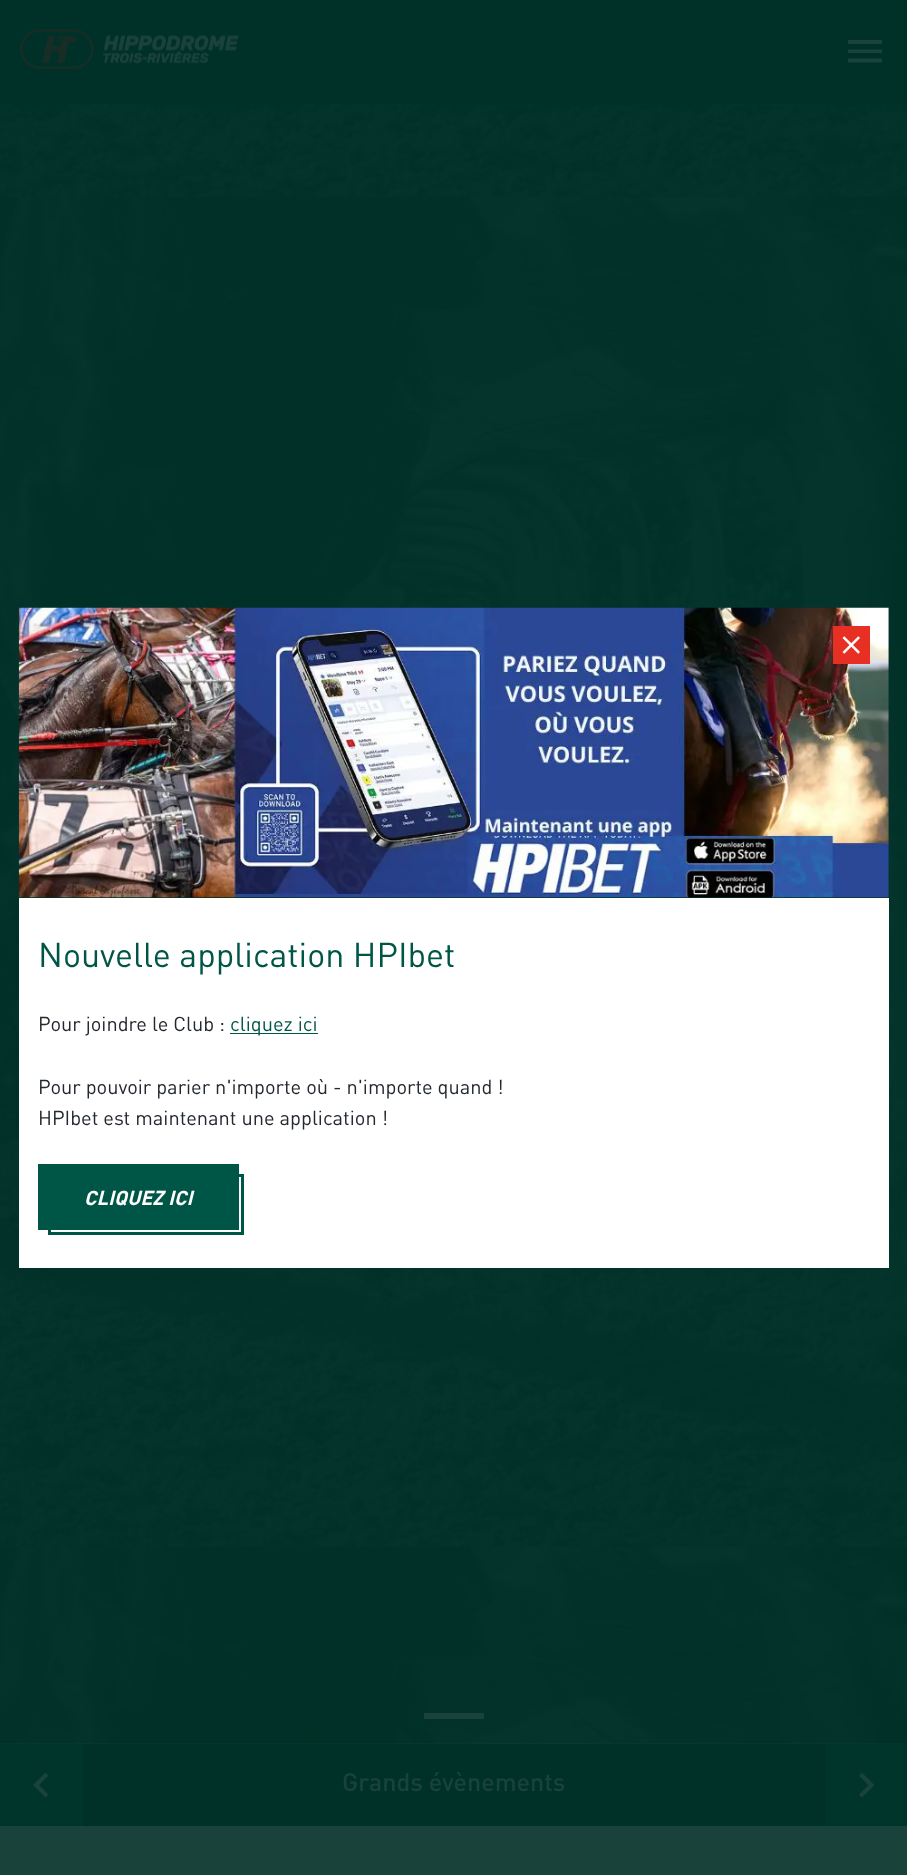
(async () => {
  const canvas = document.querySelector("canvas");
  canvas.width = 907;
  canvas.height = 1875;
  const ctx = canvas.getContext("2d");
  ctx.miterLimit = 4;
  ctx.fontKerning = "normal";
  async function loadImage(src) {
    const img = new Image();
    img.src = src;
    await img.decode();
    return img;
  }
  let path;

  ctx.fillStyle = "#19423b";
  ctx.fillRect(0, 0, 907, 1875);
  ctx.drawImage(await loadImage("img/4.png"), 0, 104, 907, 1640);
  ctx.drawImage(await loadImage("img/1.png"), 18, 607, 871, 291);
  ctx.fillStyle = "#e73023";
  ctx.fillRect(833, 626, 37, 38);
  ctx.drawImage(await loadImage("img/2.png"), 842, 636, 18, 18);
  for (const [x, y, w, h, color] of [
    [19, 898, 870, 370, "#ffffff"],
    [230, 1033, 88, 1, "#005646"],
    [38, 1164, 201, 66, "#005646"],
  ]) {
    ctx.fillStyle = color;
    ctx.fillRect(x, y, w, h);
  }
  ctx.strokeStyle = "#005646";
  ctx.lineWidth = 3;
  ctx.strokeRect(49.5, 1175.5, 193, 58);
  ctx.fillStyle = "#003128";
  ctx.fillRect(0, 0, 907, 104);
  ctx.drawImage(await loadImage("img/3.png"), 20, 29, 219, 41);
  ctx.fillStyle = "#19423b";
  path = new Path2D("M848 40H882V44H848ZM848 53V49.5H882V53ZM848 62.5V58.5H882V62.5Z");
  ctx.fill(path);
  for (const [x, y, w, h, color] of [
    [424, 1713, 60, 6, "#19423b"],
    [83, 1744, 742, 82, "#003128"],
    [0, 1744, 83, 82, "#00352c"],
  ]) {
    ctx.fillStyle = color;
    ctx.fillRect(x, y, w, h);
  }
  ctx.fillStyle = "#19423b";
  path = new Path2D("M48.5 1794.5L45.5 1797.5L33 1785L45.5 1772.5L48.5 1775.5L39 1785Z");
  ctx.fill(path);
  ctx.fillStyle = "#00352c";
  ctx.fillRect(825, 1744, 82, 82);
  ctx.fillStyle = "#19423b";
  path = new Path2D("M859 1794.5L868.5 1785L859 1775.5L862 1772.5L874.5 1785L862 1797.5Z");
  ctx.fill(path);
  ctx.font = "34px 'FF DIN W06'";
  ctx.fillStyle = "#005646";
  ctx.fillText("Nouvelle application HPIbet", 38, 967);
  ctx.font = "20px 'FF DIN W06'";
  ctx.fillStyle = "#22282f";
  ctx.fillText("Pour joindre le Club :", 38, 1031);
  ctx.fillStyle = "#005646";
  ctx.fillText("cliquez ici", 230, 1031);
  ctx.fillStyle = "#22282f";
  ctx.fillText("Pour pouvoir parier n'importe où - n'importe quand !", 38, 1094);
  ctx.fillText("HPIbet est maintenant une application !", 38, 1125);
  ctx.font = "italic bold 20px 'FF DIN W06'";
  ctx.fillStyle = "#ffffff";
  ctx.fillText("CLIQUEZ ICI", 84, 1205);
  ctx.font = "500 25px 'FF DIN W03'";
  ctx.fillStyle = "#19423b";
  ctx.fillText("Grands évènements", 342, 1791);
})();
